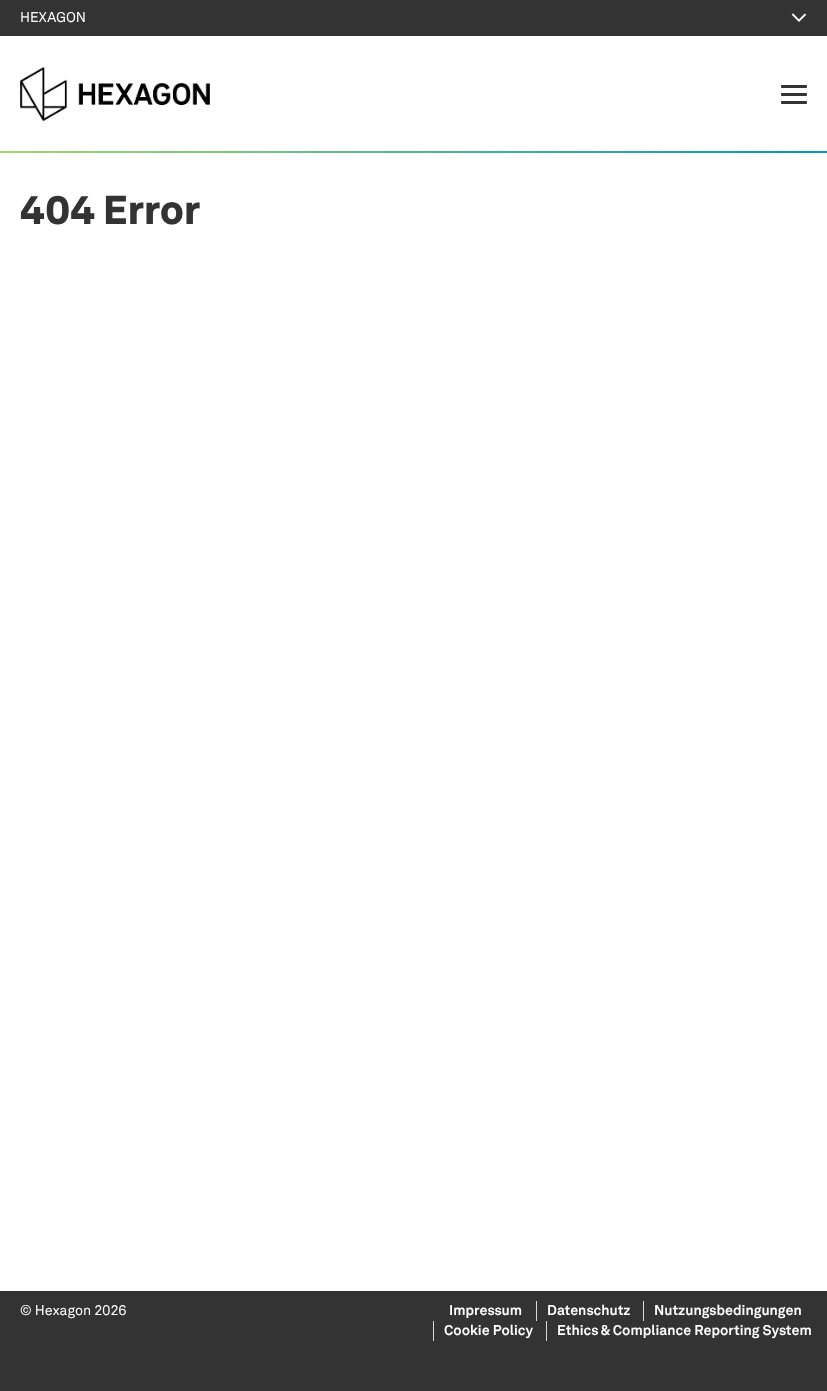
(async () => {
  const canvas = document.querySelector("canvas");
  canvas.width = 827;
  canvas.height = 1391;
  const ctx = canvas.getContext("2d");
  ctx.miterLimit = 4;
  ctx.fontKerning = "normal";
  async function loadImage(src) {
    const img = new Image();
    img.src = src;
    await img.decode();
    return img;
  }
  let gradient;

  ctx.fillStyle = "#ffffff";
  ctx.fillRect(0, 0, 827, 1391);
  ctx.fillStyle = "#333333";
  ctx.fillRect(0, 0, 827, 36);
  ctx.drawImage(await loadImage("img/1.png"), 791, 13, 16, 9);
  ctx.drawImage(await loadImage("img/2.png"), 20, 66, 190, 56);
  ctx.beginPath();
  ctx.roundRect(781, 85, 26, 3, 1);
  ctx.fill();
  ctx.beginPath();
  ctx.roundRect(781, 93, 26, 3, 1);
  ctx.fill();
  ctx.beginPath();
  ctx.roundRect(781, 101, 26, 3, 1);
  ctx.fill();
  gradient = ctx.createLinearGradient(0, 152, 827, 152);
  gradient.addColorStop(0, "#a5d867");
  gradient.addColorStop(1, "#0097ba");
  ctx.fillStyle = gradient;
  ctx.fillRect(0, 151, 827, 2);
  for (const [x, y, w, h, color] of [
    [0, 1291, 827, 100, "#333333"],
    [536, 1301, 1, 20, "#d8d8d8"],
    [643, 1301, 1, 20, "#d8d8d8"],
    [433, 1321, 1, 20, "#d8d8d8"],
    [546, 1321, 1, 20, "#d8d8d8"],
  ]) {
    ctx.fillStyle = color;
    ctx.fillRect(x, y, w, h);
  }
  ctx.font = "14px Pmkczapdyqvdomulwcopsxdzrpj";
  ctx.fillStyle = "#fefefe";
  ctx.fillText("HEXAGON", 20, 22);
  ctx.font = "900 40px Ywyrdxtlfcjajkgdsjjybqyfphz";
  ctx.fillStyle = "#333333";
  ctx.fillText("404 Error", 20, 224);
  ctx.font = "14px Pmkczapdyqvdomulwcopsxdzrpj";
  ctx.fillStyle = "#fefefe";
  ctx.fillText("© Hexagon 2026", 20, 1315);
  ctx.font = "bold 14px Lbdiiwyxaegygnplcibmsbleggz";
  for (const [text, x, y] of [
    ["Impressum", 449, 1315],
    ["Datenschutz", 547, 1315],
    ["Nutzungsbedingungen", 654, 1315],
    ["Cookie Policy", 444, 1335],
    ["Ethics & Compliance Reporting System", 557, 1335],
  ]) {
    ctx.fillText(text, x, y);
  }
})();
